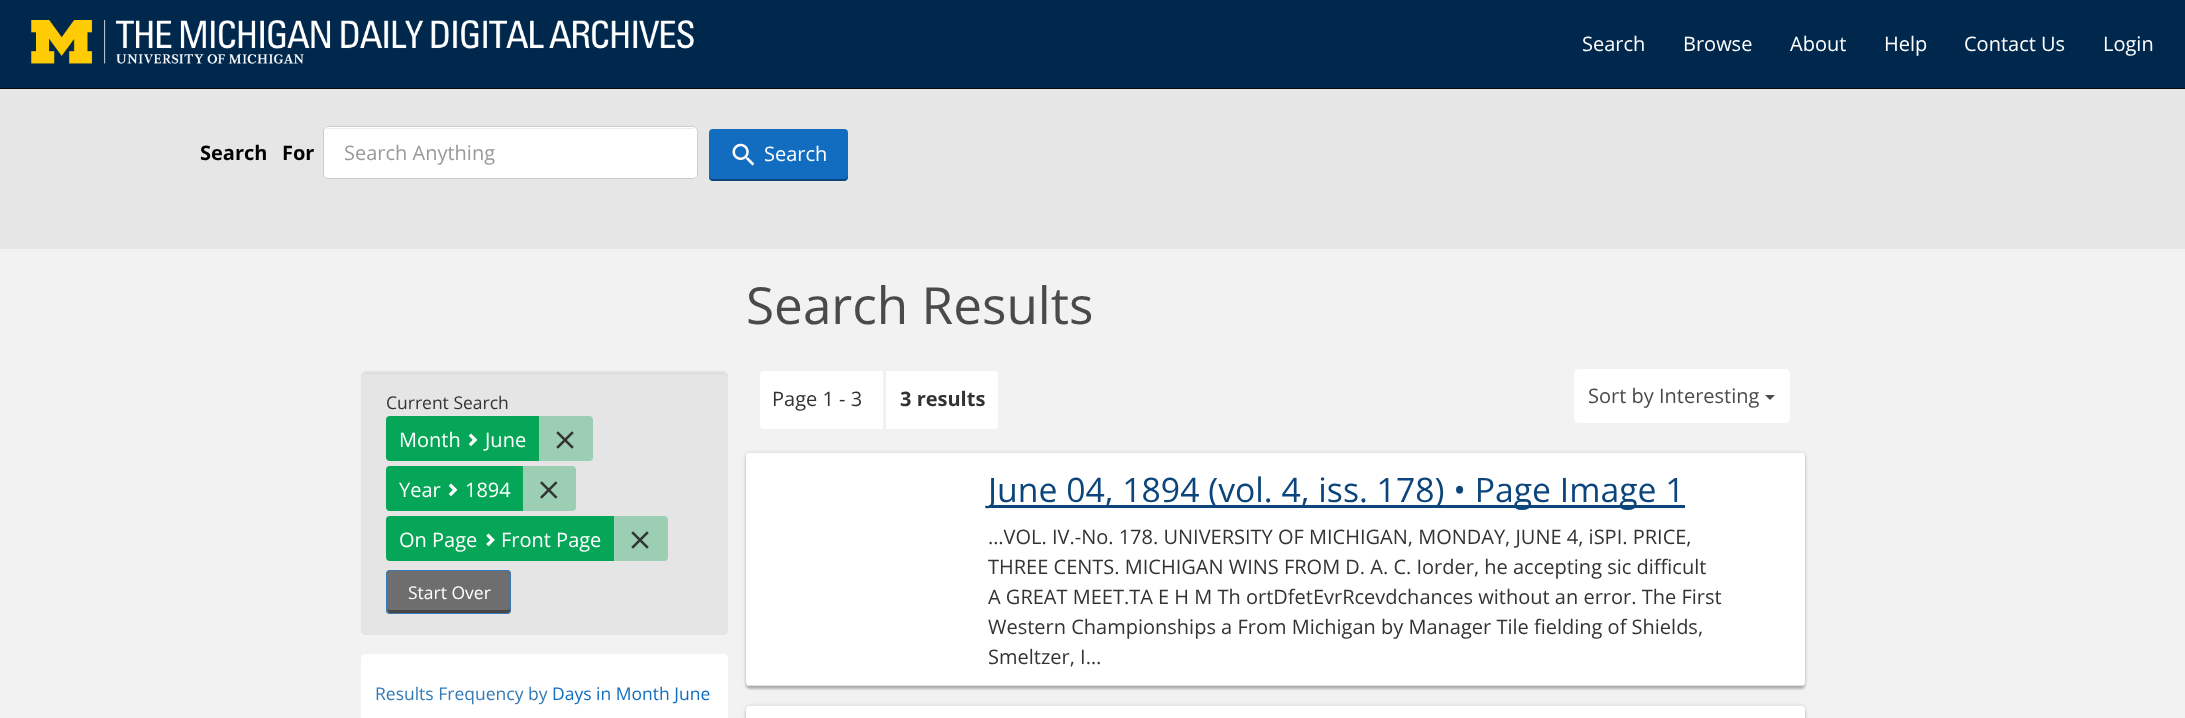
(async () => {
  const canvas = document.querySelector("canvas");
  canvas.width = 2185;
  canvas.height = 718;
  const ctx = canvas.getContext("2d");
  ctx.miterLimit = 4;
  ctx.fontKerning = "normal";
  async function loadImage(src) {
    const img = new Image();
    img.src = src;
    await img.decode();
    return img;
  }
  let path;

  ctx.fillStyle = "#f2f2f2";
  ctx.fillRect(0, 0, 2185, 718);
  ctx.fillStyle = "#00274c";
  ctx.fillRect(0, 0, 2185, 88);
  ctx.fillStyle = "#090909";
  ctx.fillRect(0, 88, 2185, 1);
  ctx.drawImage(await loadImage("img/1.png"), 31, 20, 663, 44);
  ctx.fillStyle = "#e7e7e7";
  ctx.fillRect(0, 248, 2185, 1);
  ctx.fillStyle = "#e6e6e6";
  ctx.fillRect(0, 89, 2185, 159);
  ctx.fillStyle = "#ffffff";
  ctx.beginPath();
  ctx.roundRect(323, 126, 375, 53, 5);
  ctx.fill();
  ctx.fillStyle = "#ececec";
  path = new Path2D("M328 129H692C694 129 695 129 696 130C695 129 694 128 692 128H328C326 128 325 129 324 130C325 129 326 129 328 129Z");
  ctx.fill(path);
  ctx.beginPath();
  ctx.roundRect(323.5, 126.5, 374, 52, 4.5);
  ctx.strokeStyle = "#cccccc";
  ctx.stroke();
  ctx.fillStyle = "#126dc1";
  ctx.beginPath();
  ctx.roundRect(709, 129, 139, 52, 4);
  ctx.fill();
  ctx.fillStyle = "rgba(0, 0, 0, 0.36)";
  path = new Path2D("M709 175V177C709 179 711 181 713 181H844C846 181 848 179 848 177V175C848 177 846 179 844 179H712C710 179 709 177 709 175Z");
  ctx.fill(path);
  ctx.drawImage(await loadImage("img/2.png"), 732, 143, 23, 23);
  ctx.fillStyle = "#e5e5e5";
  ctx.beginPath();
  ctx.roundRect(361, 371, 367, 264, 5);
  ctx.fill();
  ctx.fillStyle = "#dadada";
  path = new Path2D("M366 374H722C725 374 726 375 726 378V377C726 375 724 373 722 373H367C366 373 365 374 364 374Z");
  ctx.fill(path);
  ctx.beginPath();
  ctx.roundRect(361.5, 371.5, 366, 263, 4.5);
  ctx.strokeStyle = "#e3e3e3";
  ctx.stroke();
  ctx.fillStyle = "#05a657";
  ctx.beginPath();
  ctx.roundRect(386, 416, 153, 45, [4, 0, 0, 4]);
  ctx.fill();
  ctx.drawImage(await loadImage("img/3.png"), 468, 433, 10, 14);
  ctx.fillStyle = "rgba(26, 165, 90, 0.36)";
  ctx.beginPath();
  ctx.roundRect(538, 416, 55, 45, [0, 4, 4, 0]);
  ctx.fill();
  ctx.drawImage(await loadImage("img/4.png"), 556, 431, 18, 18);
  ctx.fillStyle = "#05a657";
  ctx.beginPath();
  ctx.roundRect(386, 466, 137, 45, [4, 0, 0, 4]);
  ctx.fill();
  ctx.drawImage(await loadImage("img/3.png"), 448, 483, 10, 14);
  ctx.fillStyle = "rgba(26, 165, 90, 0.36)";
  ctx.beginPath();
  ctx.roundRect(521, 466, 55, 45, [0, 4, 4, 0]);
  ctx.fill();
  ctx.drawImage(await loadImage("img/5.png"), 540, 481, 18, 18);
  ctx.fillStyle = "#05a657";
  ctx.beginPath();
  ctx.roundRect(386, 516, 228, 45, [4, 0, 0, 4]);
  ctx.fill();
  ctx.drawImage(await loadImage("img/6.png"), 486, 533, 9, 14);
  ctx.fillStyle = "rgba(26, 165, 90, 0.36)";
  ctx.beginPath();
  ctx.roundRect(613, 516, 55, 45, [0, 4, 4, 0]);
  ctx.fill();
  ctx.drawImage(await loadImage("img/4.png"), 631, 531, 18, 18);
  ctx.fillStyle = "#6e6e6e";
  ctx.beginPath();
  ctx.roundRect(386, 570, 125, 44, 4);
  ctx.fill();
  ctx.fillStyle = "#464646";
  path = new Path2D("M388 608V610C388 612 389 613 390 613H508C509 613 510 612 510 610V608C510 609 509 610 508 610H390C389 610 388 609 388 608Z");
  ctx.fill(path);
  ctx.beginPath();
  ctx.roundRect(386.5, 570.5, 124, 43, 3.5);
  ctx.strokeStyle = "#337ab7";
  ctx.stroke();
  ctx.fillStyle = "#ffffff";
  ctx.beginPath();
  ctx.roundRect(361.5, 654.5, 366, 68, 3.5);
  ctx.fill();
  ctx.strokeStyle = "#ffffff";
  ctx.stroke();
  ctx.beginPath();
  ctx.roundRect(760, 371, 238, 58, 4);
  ctx.fill();
  ctx.fillStyle = "#f2f2f2";
  ctx.fillRect(883, 371, 3, 58);
  ctx.fillStyle = "#ffffff";
  ctx.beginPath();
  ctx.roundRect(1574, 369, 216, 54, 5);
  ctx.fill();
  ctx.fillStyle = "#4a4a4a";
  path = new Path2D("M1765 395H1775L1770 400Z");
  ctx.fill(path);
  ctx.fillStyle = "rgba(0, 0, 0, 0.12)";
  ctx.filter = "blur(2px)";
  ctx.beginPath();
  ctx.roundRect(746, 453, 1059, 233, 4);
  ctx.fill();
  ctx.filter = "none";
  ctx.fillStyle = "rgba(0, 0, 0, 0.24)";
  ctx.filter = "blur(1px)";
  ctx.beginPath();
  ctx.roundRect(746, 455, 1059, 234, 4);
  ctx.fill();
  ctx.filter = "none";
  ctx.fillStyle = "#ffffff";
  ctx.beginPath();
  ctx.roundRect(746, 453, 1059, 233, 4);
  ctx.fill();
  ctx.fillStyle = "#dddddd";
  ctx.fillRect(749, 685, 1055, 1);
  ctx.fillStyle = "#0b457b";
  ctx.fillRect(989, 505, 696, 3);
  ctx.fillStyle = "rgba(0, 0, 0, 0.12)";
  ctx.filter = "blur(2px)";
  ctx.beginPath();
  ctx.roundRect(746, 706, 1059, 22, 4);
  ctx.fill();
  ctx.filter = "none";
  ctx.fillStyle = "rgba(0, 0, 0, 0.24)";
  ctx.filter = "blur(1px)";
  ctx.beginPath();
  ctx.roundRect(746, 709, 1059, 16, 4);
  ctx.fill();
  ctx.filter = "none";
  ctx.fillStyle = "#ffffff";
  ctx.beginPath();
  ctx.roundRect(746, 706, 1059, 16, 4);
  ctx.fill();
  ctx.font = "20px Open Sans";
  for (const [text, x, y] of [
    ["Search", 1582, 51],
    ["Browse", 1683, 51],
    ["About", 1790, 51],
    ["Help", 1884, 51],
    ["Contact Us", 1964, 51],
    ["Login", 2103, 51],
  ]) {
    ctx.fillText(text, x, y);
  }
  ctx.font = "bold 20px Open Sans";
  ctx.fillStyle = "#000000";
  ctx.fillText("Search", 200, 160);
  ctx.fillText("For", 282, 160);
  ctx.font = "20px Open Sans";
  ctx.fillStyle = "#999999";
  ctx.fillText("Search Anything", 344, 160);
  ctx.fillStyle = "#ffffff";
  ctx.fillText("Search", 764, 161);
  ctx.font = "51.25px Open Sans";
  ctx.fillStyle = "#4a4a4a";
  ctx.fillText("Search Results", 746, 324);
  ctx.font = "17.5px Open Sans";
  ctx.fillStyle = "#333333";
  ctx.fillText("Current Search", 386, 409);
  ctx.font = "20px Open Sans";
  ctx.fillStyle = "#ffffff";
  for (const [text, x, y] of [
    ["Month", 399, 447],
    ["June", 485, 447],
    ["Year", 399, 497],
    ["1894", 465, 497],
    ["On Page", 399, 547],
    ["Front Page", 501, 547],
  ]) {
    ctx.fillText(text, x, y);
  }
  ctx.font = "17.5px Open Sans";
  ctx.fillText("Start Over", 408, 599);
  ctx.fillStyle = "#337ab7";
  ctx.fillText("Results Frequency by", 375, 700);
  ctx.fillStyle = "#126dc1";
  ctx.fillText("Days in Month June", 552, 700);
  ctx.font = "20px Open Sans";
  ctx.fillStyle = "#333333";
  ctx.fillText("Page 1 - 3", 772, 406);
  ctx.font = "bold 20px Open Sans";
  ctx.fillText("3 results", 900, 406);
  ctx.font = "20px Open Sans";
  ctx.fillStyle = "#4a4a4a";
  ctx.fillText("Sort by Interesting", 1588, 403);
  ctx.font = "33.75px Open Sans";
  ctx.fillStyle = "#0b457b";
  ctx.fillText("June 04, 1894 (vol. 4, iss. 178) • Page Image 1", 988, 502);
  ctx.font = "20px Open Sans";
  ctx.fillStyle = "#333333";
  for (const [text, x, y] of [
    ["…VOL. IV.-No. 178. UNIVERSITY OF MICHIGAN, MONDAY, JUNE 4, iSPI. PRICE,", 988, 544],
    ["THREE CENTS. MICHIGAN WINS FROM D. A. C. Iorder, he accepting sic difficult", 988, 574],
    ["A GREAT MEET.TA E H M Th ortDfetEvrRcevdchances without an error. The First", 988, 604],
    ["Western Championships a From Michigan by Manager Tile fielding of Shields,", 988, 634],
    ["Smeltzer, I…", 988, 664],
  ]) {
    ctx.fillText(text, x, y);
  }
})();
